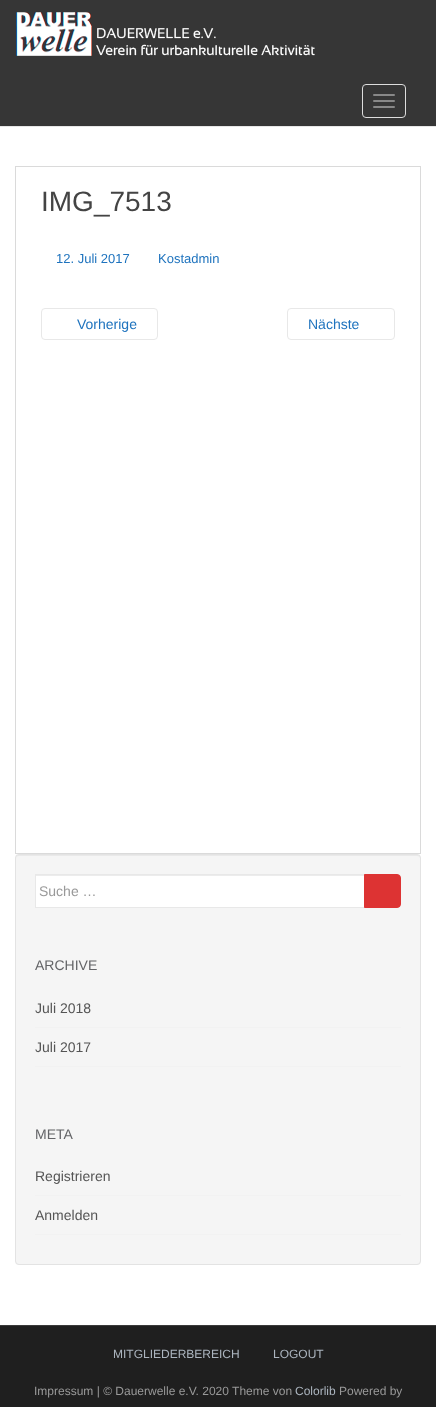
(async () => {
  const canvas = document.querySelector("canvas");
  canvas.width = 436;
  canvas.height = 1407;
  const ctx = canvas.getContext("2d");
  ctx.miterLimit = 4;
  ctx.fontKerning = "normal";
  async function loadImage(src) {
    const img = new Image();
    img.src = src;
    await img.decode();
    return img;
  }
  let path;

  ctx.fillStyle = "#ffffff";
  ctx.fillRect(0, 0, 436, 1407);
  ctx.fillStyle = "#363636";
  ctx.fillRect(0, 0, 436, 126);
  ctx.fillStyle = "#e7e7e7";
  ctx.fillRect(0, 126, 436, 1);
  ctx.drawImage(await loadImage("img/1.png"), 16, 12, 299, 44);
  ctx.beginPath();
  ctx.roundRect(362.5, 84.5, 43, 33, 3.5);
  ctx.strokeStyle = "#dddddd";
  ctx.stroke();
  ctx.fillStyle = "#888888";
  ctx.beginPath();
  ctx.roundRect(373, 94, 22, 2, 1);
  ctx.fill();
  ctx.beginPath();
  ctx.roundRect(373, 100, 22, 2, 1);
  ctx.fill();
  ctx.beginPath();
  ctx.roundRect(373, 106, 22, 2, 1);
  ctx.fill();
  ctx.strokeStyle = "#dadada";
  ctx.strokeRect(15.5, 166.5, 405, 687);
  ctx.beginPath();
  ctx.roundRect(41.5, 308.5, 116, 31, 3.5);
  ctx.strokeStyle = "#e8e8e8";
  ctx.stroke();
  ctx.beginPath();
  ctx.roundRect(287.5, 308.5, 107, 31, 3.5);
  ctx.stroke();
  ctx.fillStyle = "#f5f5f5";
  ctx.beginPath();
  ctx.roundRect(15, 854, 406, 411, 4);
  ctx.fill();
  ctx.fillStyle = "#e9e9e9";
  path = new Path2D("M19 856H417C419 856 420 857 420 859C420 857 419 855 417 855H19C17 855 16 857 16 859C16 857 17 856 19 856Z");
  ctx.fill(path);
  ctx.beginPath();
  ctx.roundRect(15.5, 854.5, 405, 410, 3.5);
  ctx.strokeStyle = "#e3e3e3";
  ctx.stroke();
  ctx.fillStyle = "#ffffff";
  ctx.fillRect(36, 876, 328, 31);
  ctx.fillStyle = "#ececec";
  ctx.fillRect(36, 875, 328, 1);
  ctx.strokeStyle = "#e8e8e8";
  ctx.strokeRect(35.5, 874.5, 329, 33);
  ctx.fillStyle = "#dd3333";
  ctx.beginPath();
  ctx.roundRect(364.5, 874.5, 36, 33, [0, 3.5, 3.5, 0]);
  ctx.fill();
  ctx.strokeStyle = "#dd3333";
  ctx.stroke();
  for (const [x, y, w, h, color] of [
    [35, 1027, 366, 1, "#f2f2f2"],
    [35, 1066, 366, 1, "#f2f2f2"],
    [35, 1195, 366, 1, "#f2f2f2"],
    [35, 1234, 366, 1, "#f2f2f2"],
    [0, 1326, 436, 81, "#1f1f1f"],
    [0, 1325, 436, 1, "#3a3a3a"],
  ]) {
    ctx.fillStyle = color;
    ctx.fillRect(x, y, w, h);
  }
  ctx.font = "28px Liberation Sans";
  ctx.fillStyle = "#444444";
  ctx.fillText("IMG_7513", 41, 211);
  ctx.font = "13px Liberation Sans";
  ctx.fillStyle = "#1e73be";
  ctx.fillText("12. Juli 2017", 56, 263);
  ctx.fillText("Kostadmin", 158, 263);
  ctx.font = "14px Liberation Sans";
  ctx.fillText("Vorherige", 77, 329);
  ctx.fillText("Nächste", 308, 329);
  ctx.fillStyle = "#999999";
  ctx.fillText("Suche …", 39, 896);
  ctx.fillStyle = "#636467";
  ctx.fillText("ARCHIVE", 35, 970);
  ctx.fillStyle = "#555555";
  ctx.fillText("Juli 2018", 35, 1013);
  ctx.fillText("Juli 2017", 35, 1052);
  ctx.fillStyle = "#636467";
  ctx.fillText("META", 35, 1139);
  ctx.fillStyle = "#555555";
  ctx.fillText("Registrieren", 35, 1181);
  ctx.fillText("Anmelden", 35, 1220);
  ctx.font = "12px Liberation Sans";
  ctx.fillStyle = "#acb5bf";
  ctx.fillText("MITGLIEDERBEREICH", 113, 1358);
  ctx.fillText("LOGOUT", 273, 1358);
  ctx.fillStyle = "#999999";
  ctx.fillText("Impressum | © Dauerwelle e.V. 2020 Theme von", 34, 1395);
  ctx.fillStyle = "#acb5bf";
  ctx.fillText("Colorlib", 295, 1395);
  ctx.fillStyle = "#999999";
  ctx.fillText("Powered by", 339, 1395);
})();
